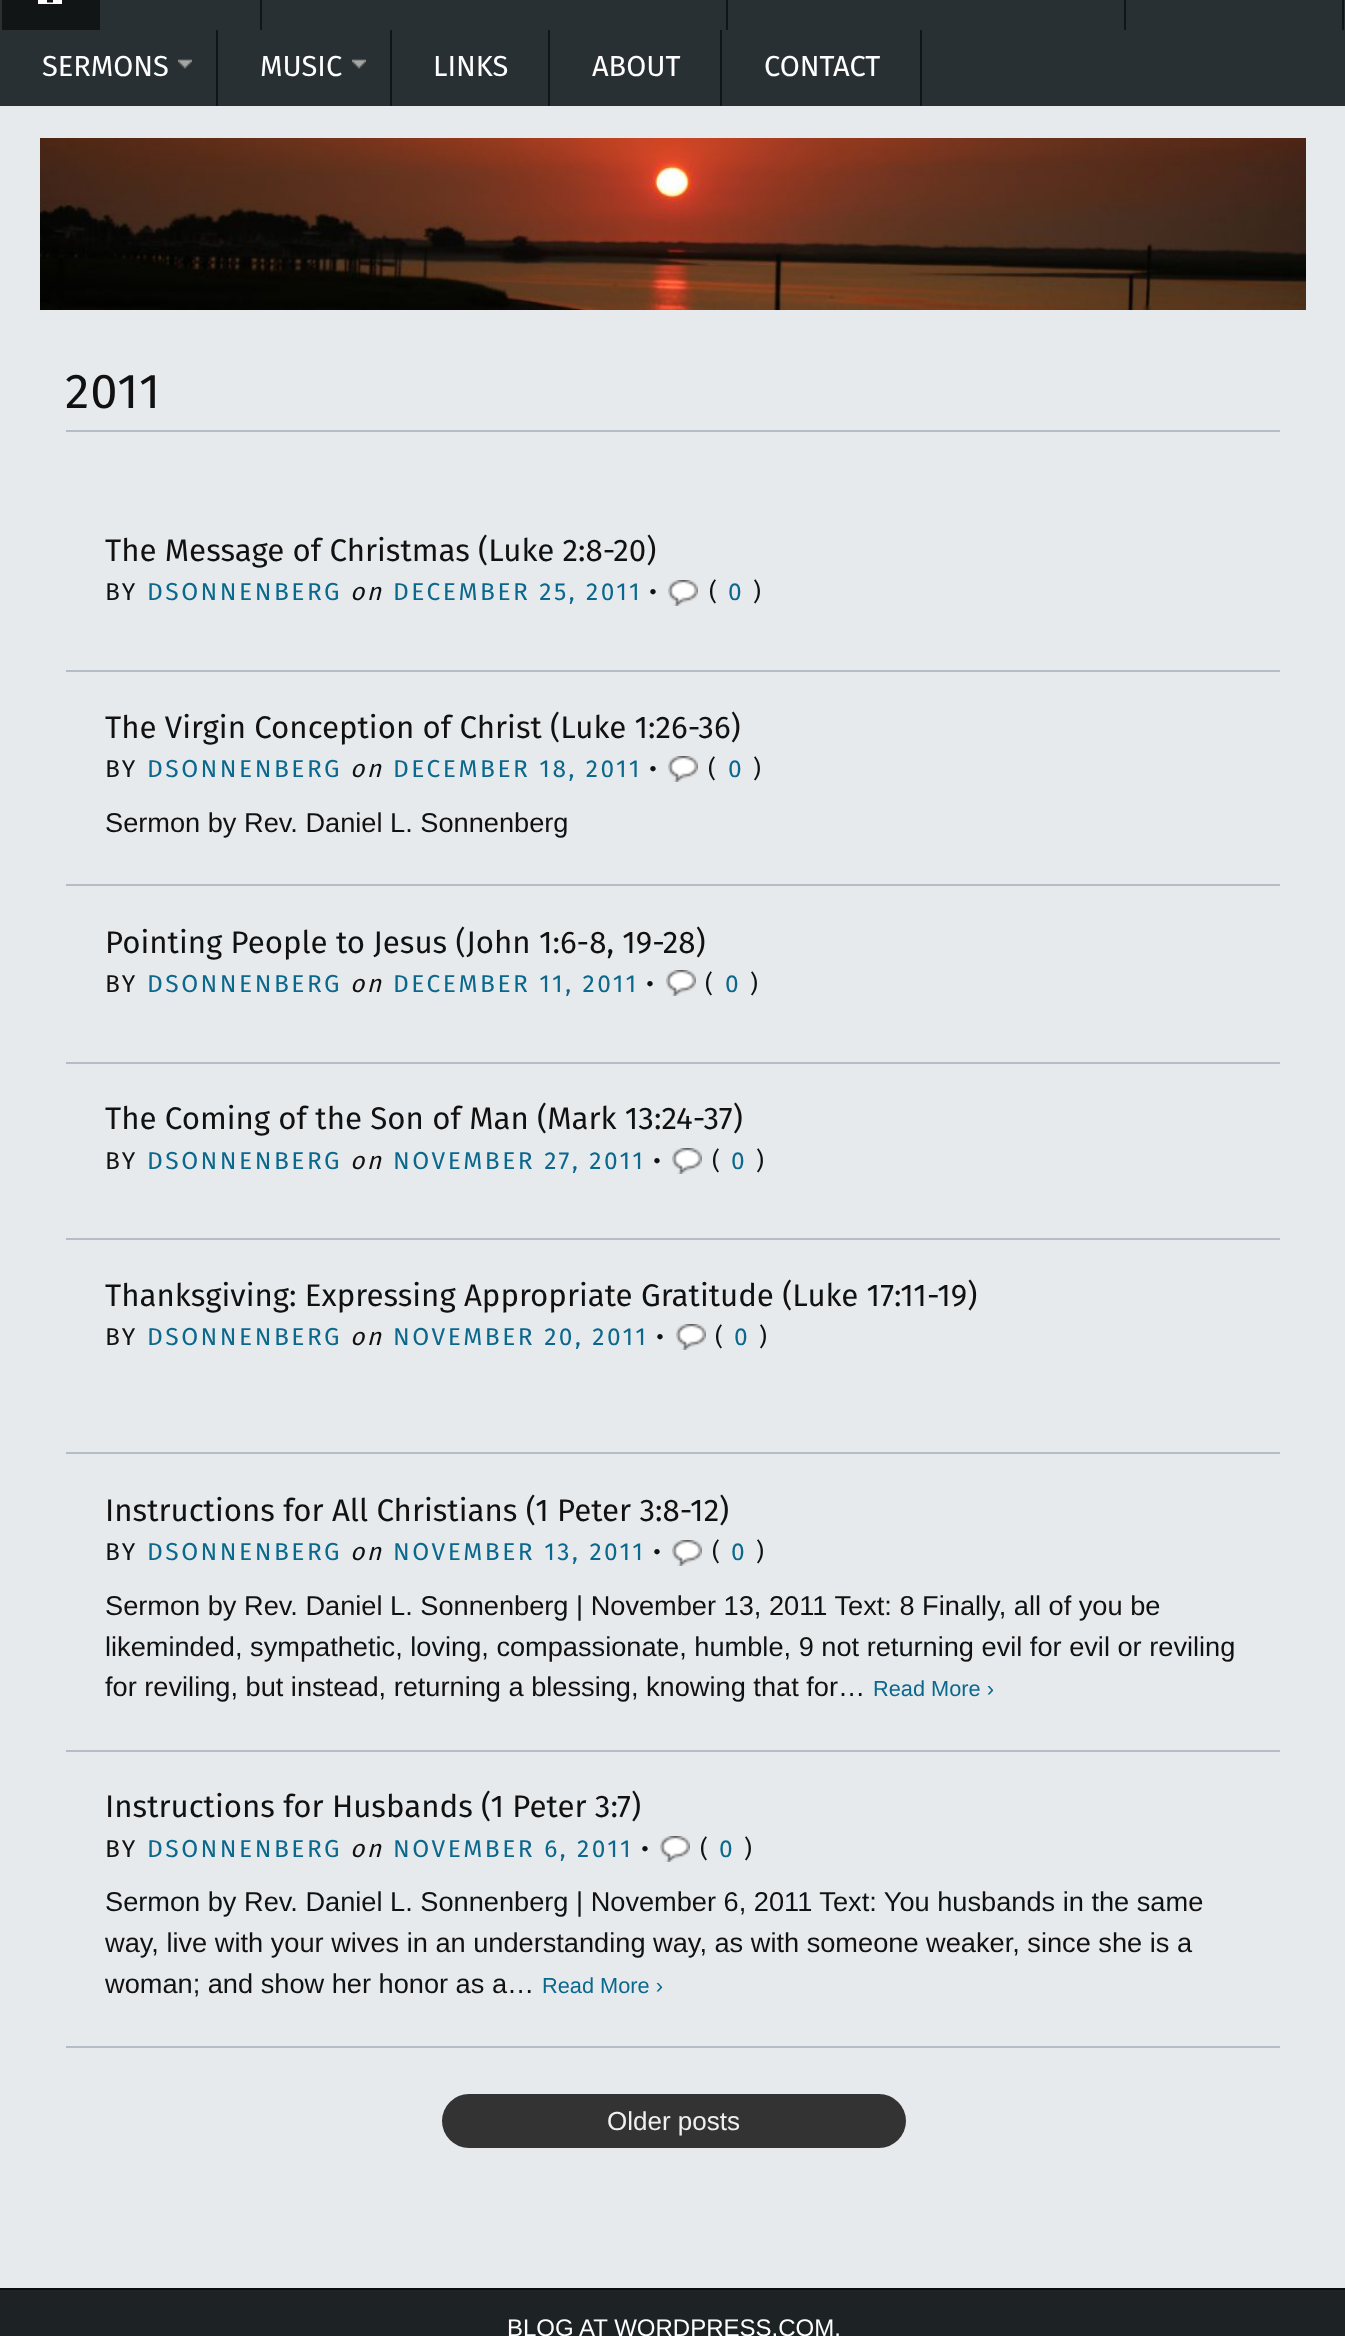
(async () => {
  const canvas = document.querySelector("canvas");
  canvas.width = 1345;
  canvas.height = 2336;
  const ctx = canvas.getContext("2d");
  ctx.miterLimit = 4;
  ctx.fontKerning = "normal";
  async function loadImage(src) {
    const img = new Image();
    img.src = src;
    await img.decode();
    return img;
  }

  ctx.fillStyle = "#e7eaed";
  ctx.fillRect(0, 0, 1345, 2336);
  ctx.fillStyle = "#293033";
  ctx.fillRect(0, 0, 1345, 106);
  ctx.fillStyle = "#121516";
  ctx.fillRect(2, 0, 98, 30);
  ctx.drawImage(await loadImage("img/1.png"), 38, 0, 24, 4);
  for (const [x, y, w, h, color] of [
    [260, 0, 2, 30, "#121516"],
    [726, 0, 2, 30, "#121516"],
    [1124, 0, 2, 30, "#121516"],
    [1342, 0, 2, 30, "#121516"],
    [216, 30, 2, 76, "#121516"],
  ]) {
    ctx.fillStyle = color;
    ctx.fillRect(x, y, w, h);
  }
  ctx.drawImage(await loadImage("img/2.png"), 178, 59, 14, 10);
  ctx.fillRect(390, 30, 2, 76);
  ctx.drawImage(await loadImage("img/2.png"), 352, 59, 14, 10);
  for (const [x, y, w, h, color] of [
    [548, 30, 2, 76, "#121516"],
    [720, 30, 2, 76, "#121516"],
    [920, 30, 2, 76, "#121516"],
  ]) {
    ctx.fillStyle = color;
    ctx.fillRect(x, y, w, h);
  }
  ctx.drawImage(await loadImage("img/3.png"), 40, 138, 1266, 172);
  ctx.fillStyle = "#b4bdc7";
  ctx.fillRect(66, 430, 1214, 2);
  ctx.fillRect(66, 670, 1214, 2);
  ctx.drawImage(await loadImage("img/4.png"), 668, 580, 30, 26);
  ctx.fillRect(66, 884, 1214, 2);
  ctx.drawImage(await loadImage("img/4.png"), 668, 756, 30, 26);
  ctx.fillRect(66, 1062, 1214, 2);
  ctx.drawImage(await loadImage("img/4.png"), 666, 970, 30, 26);
  ctx.fillRect(66, 1238, 1214, 2);
  ctx.drawImage(await loadImage("img/4.png"), 672, 1148, 30, 26);
  ctx.fillRect(66, 1452, 1214, 2);
  ctx.drawImage(await loadImage("img/4.png"), 676, 1324, 30, 26);
  ctx.fillRect(66, 1750, 1214, 2);
  ctx.drawImage(await loadImage("img/4.png"), 672, 1540, 30, 26);
  ctx.fillRect(66, 2046, 1214, 2);
  ctx.drawImage(await loadImage("img/4.png"), 660, 1836, 30, 26);
  ctx.fillStyle = "#333333";
  ctx.beginPath();
  ctx.roundRect(442, 2094, 464, 54, 27);
  ctx.fill();
  ctx.fillStyle = "#1d2224";
  ctx.fillRect(0, 2290, 1345, 46);
  ctx.fillStyle = "#0a0c0d";
  ctx.fillRect(0, 2288, 1345, 2);
  ctx.font = "29px Fira Sans";
  ctx.fillStyle = "#fefefe";
  for (const [text, x, y] of [
    ["SERMONS", 42, 76],
    ["MUSIC", 260, 76],
    ["LINKS", 433, 76],
    ["ABOUT", 592, 76],
    ["CONTACT", 764, 76],
  ]) {
    ctx.fillText(text, x, y);
  }
  ctx.letterSpacing = "1px";
  ctx.font = "49px Fira Sans";
  ctx.fillStyle = "#111111";
  ctx.fillText("2011", 65, 408);
  ctx.letterSpacing = "0px";
  ctx.font = "31.25px Fira Sans";
  ctx.fillText("The Message of Christmas (Luke 2:8-20)", 105, 561);
  ctx.letterSpacing = "2.5px";
  ctx.font = "24.5px Fira Sans";
  ctx.fillText("BY", 105, 600);
  ctx.fillStyle = "#0b688d";
  ctx.fillText("DSONNENBERG", 147, 600);
  ctx.font = "italic 24.5px Fira Sans";
  ctx.fillStyle = "#111111";
  ctx.fillText("on", 350, 600);
  ctx.font = "24.5px Fira Sans";
  ctx.fillStyle = "#0b688d";
  ctx.fillText("DECEMBER 25, 2011", 393, 600);
  ctx.fillStyle = "#111111";
  ctx.fillText("•", 649, 600);
  ctx.fillText("(", 709, 600);
  ctx.fillStyle = "#0b688d";
  ctx.fillText("0", 728, 600);
  ctx.fillStyle = "#111111";
  ctx.fillText(")", 753, 600);
  ctx.letterSpacing = "0px";
  ctx.font = "31.25px Fira Sans";
  ctx.fillText("The Virgin Conception of Christ (Luke 1:26-36)", 105, 738);
  ctx.letterSpacing = "2.5px";
  ctx.font = "24.5px Fira Sans";
  ctx.fillText("BY", 105, 777);
  ctx.fillStyle = "#0b688d";
  ctx.fillText("DSONNENBERG", 147, 777);
  ctx.font = "italic 24.5px Fira Sans";
  ctx.fillStyle = "#111111";
  ctx.fillText("on", 350, 777);
  ctx.font = "24.5px Fira Sans";
  ctx.fillStyle = "#0b688d";
  ctx.fillText("DECEMBER 18, 2011", 393, 777);
  ctx.fillStyle = "#111111";
  ctx.fillText("•", 649, 777);
  ctx.fillText("(", 708, 777);
  ctx.fillStyle = "#0b688d";
  ctx.fillText("0", 728, 777);
  ctx.fillStyle = "#111111";
  ctx.fillText(")", 753, 777);
  ctx.letterSpacing = "0px";
  ctx.font = "27.2px Arimo";
  ctx.fillText("Sermon by Rev. Daniel L. Sonnenberg", 105, 832);
  ctx.font = "31.25px Fira Sans";
  ctx.fillText("Pointing People to Jesus (John 1:6-8, 19-28)", 105, 953);
  ctx.letterSpacing = "2.5px";
  ctx.font = "24.5px Fira Sans";
  ctx.fillText("BY", 105, 992);
  ctx.fillStyle = "#0b688d";
  ctx.fillText("DSONNENBERG", 147, 992);
  ctx.font = "italic 24.5px Fira Sans";
  ctx.fillStyle = "#111111";
  ctx.fillText("on", 350, 992);
  ctx.font = "24.5px Fira Sans";
  ctx.fillStyle = "#0b688d";
  ctx.fillText("DECEMBER 11, 2011", 393, 992);
  ctx.fillStyle = "#111111";
  ctx.fillText("•", 646, 992);
  ctx.fillText("(", 705, 992);
  ctx.fillStyle = "#0b688d";
  ctx.fillText("0", 725, 992);
  ctx.fillStyle = "#111111";
  ctx.fillText(")", 750, 992);
  ctx.letterSpacing = "0px";
  ctx.font = "31.25px Fira Sans";
  ctx.fillText("The Coming of the Son of Man (Mark 13:24-37)", 105, 1129);
  ctx.letterSpacing = "2.5px";
  ctx.font = "24.5px Fira Sans";
  ctx.fillText("BY", 105, 1169);
  ctx.fillStyle = "#0b688d";
  ctx.fillText("DSONNENBERG", 147, 1169);
  ctx.font = "italic 24.5px Fira Sans";
  ctx.fillStyle = "#111111";
  ctx.fillText("on", 350, 1169);
  ctx.font = "24.5px Fira Sans";
  ctx.fillStyle = "#0b688d";
  ctx.fillText("NOVEMBER 27, 2011", 393, 1169);
  ctx.fillStyle = "#111111";
  ctx.fillText("•", 653, 1169);
  ctx.fillText("(", 712, 1169);
  ctx.fillStyle = "#0b688d";
  ctx.fillText("0", 731, 1169);
  ctx.fillStyle = "#111111";
  ctx.fillText(")", 756, 1169);
  ctx.letterSpacing = "0px";
  ctx.font = "31.25px Fira Sans";
  ctx.fillText("Thanksgiving: Expressing Appropriate Gratitude (Luke 17:11-19)", 105, 1306);
  ctx.letterSpacing = "2.5px";
  ctx.font = "24.5px Fira Sans";
  ctx.fillText("BY", 105, 1345);
  ctx.fillStyle = "#0b688d";
  ctx.fillText("DSONNENBERG", 147, 1345);
  ctx.font = "italic 24.5px Fira Sans";
  ctx.fillStyle = "#111111";
  ctx.fillText("on", 350, 1345);
  ctx.font = "24.5px Fira Sans";
  ctx.fillStyle = "#0b688d";
  ctx.fillText("NOVEMBER 20, 2011", 393, 1345);
  ctx.fillStyle = "#111111";
  ctx.fillText("•", 656, 1345);
  ctx.fillText("(", 715, 1345);
  ctx.fillStyle = "#0b688d";
  ctx.fillText("0", 734, 1345);
  ctx.fillStyle = "#111111";
  ctx.fillText(")", 759, 1345);
  ctx.letterSpacing = "0px";
  ctx.font = "31.25px Fira Sans";
  ctx.fillText("Instructions for All Christians (1 Peter 3:8-12)", 105, 1521);
  ctx.letterSpacing = "2.5px";
  ctx.font = "24.5px Fira Sans";
  ctx.fillText("BY", 105, 1560);
  ctx.fillStyle = "#0b688d";
  ctx.fillText("DSONNENBERG", 147, 1560);
  ctx.font = "italic 24.5px Fira Sans";
  ctx.fillStyle = "#111111";
  ctx.fillText("on", 350, 1560);
  ctx.font = "24.5px Fira Sans";
  ctx.fillStyle = "#0b688d";
  ctx.fillText("NOVEMBER 13, 2011", 393, 1560);
  ctx.fillStyle = "#111111";
  ctx.fillText("•", 653, 1560);
  ctx.fillText("(", 712, 1560);
  ctx.fillStyle = "#0b688d";
  ctx.fillText("0", 731, 1560);
  ctx.fillStyle = "#111111";
  ctx.fillText(")", 756, 1560);
  ctx.letterSpacing = "0px";
  ctx.font = "27.2px Arimo";
  for (const [text, x, y] of [
    ["Sermon by Rev. Daniel L. Sonnenberg | November 13, 2011 Text: 8 Finally, all of you be", 105, 1615],
    ["likeminded, sympathetic, loving, compassionate, humble, 9 not returning evil for evil or reviling", 105, 1656],
    ["for reviling, but instead, returning a blessing, knowing that for…", 105, 1696],
  ]) {
    ctx.fillText(text, x, y);
  }
  ctx.font = "21.75px Arimo";
  ctx.fillStyle = "#0b688d";
  ctx.fillText("Read More ›", 873, 1696);
  ctx.font = "31.25px Fira Sans";
  ctx.fillStyle = "#111111";
  ctx.fillText("Instructions for Husbands (1 Peter 3:7)", 105, 1817);
  ctx.letterSpacing = "2.5px";
  ctx.font = "24.5px Fira Sans";
  ctx.fillText("BY", 105, 1857);
  ctx.fillStyle = "#0b688d";
  ctx.fillText("DSONNENBERG", 147, 1857);
  ctx.font = "italic 24.5px Fira Sans";
  ctx.fillStyle = "#111111";
  ctx.fillText("on", 350, 1857);
  ctx.font = "24.5px Fira Sans";
  ctx.fillStyle = "#0b688d";
  ctx.fillText("NOVEMBER 6, 2011", 393, 1857);
  ctx.fillStyle = "#111111";
  ctx.fillText("•", 641, 1857);
  ctx.fillText("(", 700, 1857);
  ctx.fillStyle = "#0b688d";
  ctx.fillText("0", 719, 1857);
  ctx.fillStyle = "#111111";
  ctx.fillText(")", 744, 1857);
  ctx.letterSpacing = "0px";
  ctx.font = "27.2px Arimo";
  for (const [text, x, y] of [
    ["Sermon by Rev. Daniel L. Sonnenberg | November 6, 2011 Text: You husbands in the same", 105, 1911],
    ["way, live with your wives in an understanding way, as with someone weaker, since she is a", 105, 1952],
    ["woman; and show her honor as a…", 105, 1993],
  ]) {
    ctx.fillText(text, x, y);
  }
  ctx.font = "21.75px Arimo";
  ctx.fillStyle = "#0b688d";
  ctx.fillText("Read More ›", 542, 1993);
  ctx.font = "26px Arimo";
  ctx.fillStyle = "#f0f0f1";
  ctx.fillText("Older posts", 607, 2130);
  ctx.font = "24px Arimo";
  ctx.fillStyle = "#fefefe";
  ctx.fillText("BLOG AT WORDPRESS.COM.", 507, 2336);
})();
